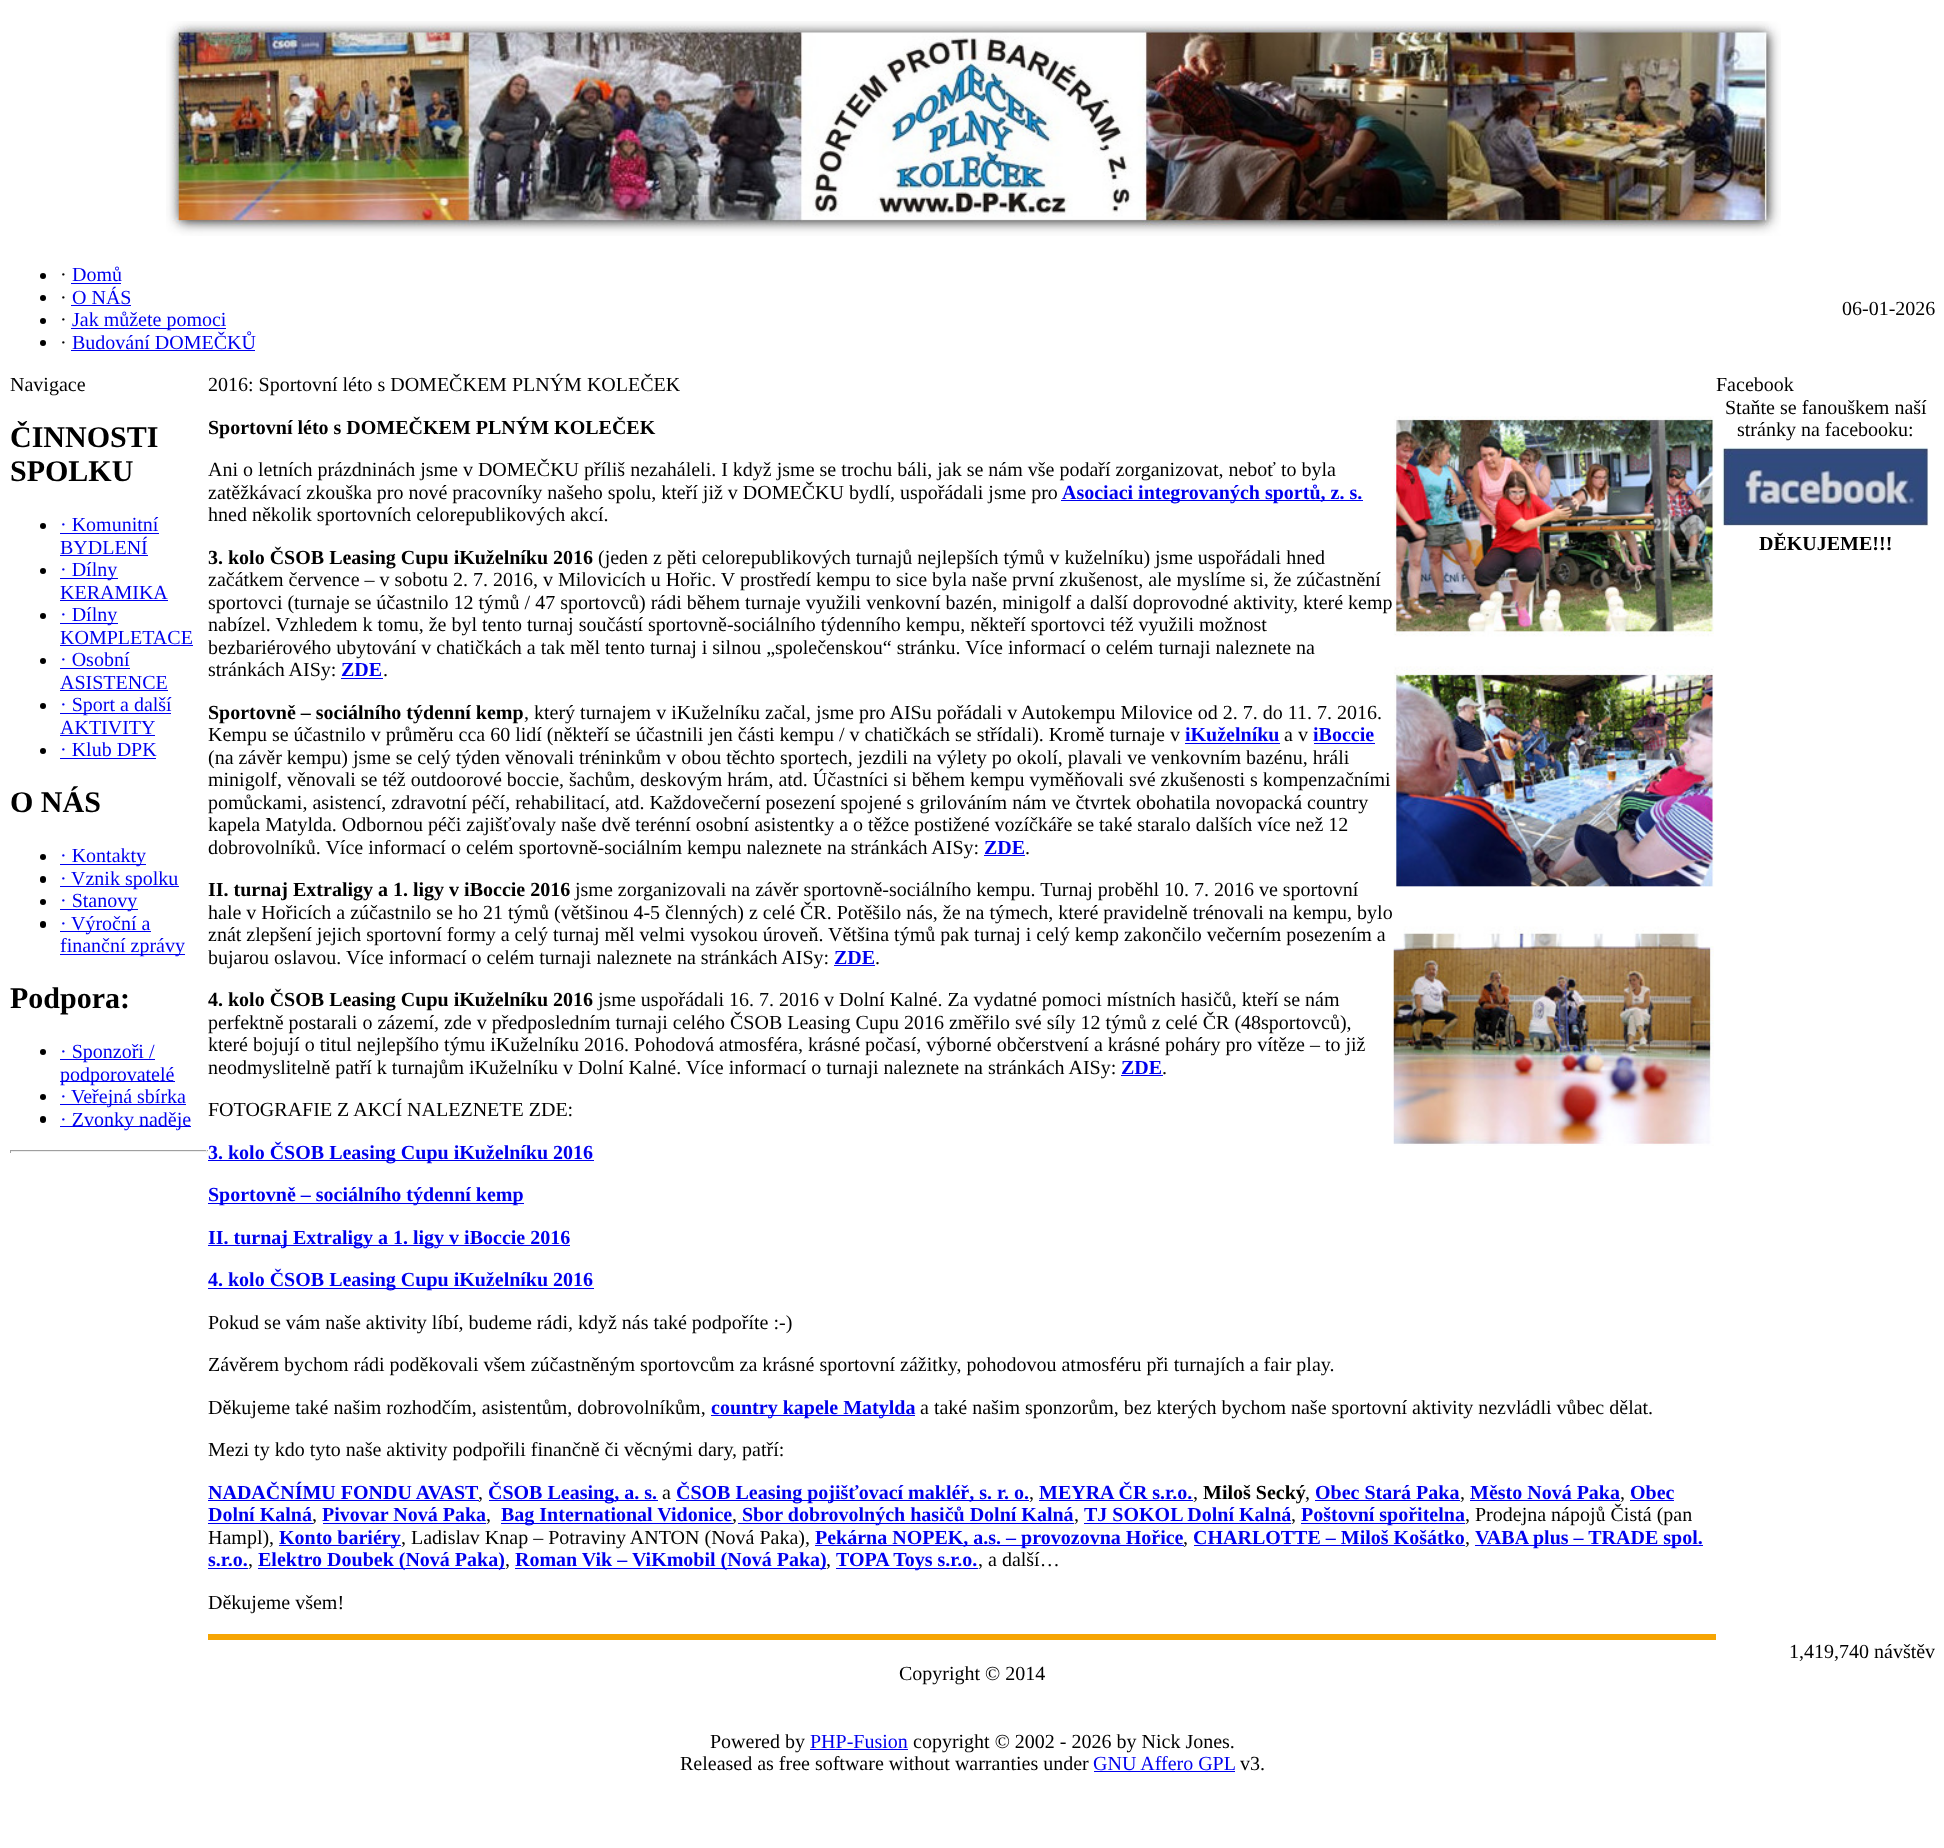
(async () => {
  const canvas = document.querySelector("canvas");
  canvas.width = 1944;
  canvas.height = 1848;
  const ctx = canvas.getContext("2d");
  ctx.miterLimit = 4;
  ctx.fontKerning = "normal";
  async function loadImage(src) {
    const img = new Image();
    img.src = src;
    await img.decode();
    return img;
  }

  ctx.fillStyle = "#ffffff";
  ctx.fillRect(0, 0, 1944, 1848);
  ctx.drawImage(await loadImage("img/1.png"), 166, 21, 1615, 215);
  ctx.fillStyle = "#000000";
  ctx.beginPath();
  ctx.arc(43, 276, 3, 0, Math.PI * 2);
  ctx.fill();
  ctx.fillStyle = "#0000ee";
  ctx.fillRect(71, 283, 50, 1);
  ctx.fillStyle = "#000000";
  ctx.beginPath();
  ctx.arc(43, 298, 3, 0, Math.PI * 2);
  ctx.fill();
  ctx.fillStyle = "#0000ee";
  ctx.fillRect(71, 305, 60, 1);
  ctx.fillStyle = "#000000";
  ctx.beginPath();
  ctx.arc(43, 321, 3, 0, Math.PI * 2);
  ctx.fill();
  ctx.fillStyle = "#0000ee";
  ctx.fillRect(71, 328, 155, 1);
  ctx.fillStyle = "#000000";
  ctx.beginPath();
  ctx.arc(43, 343, 3, 0, Math.PI * 2);
  ctx.fill();
  ctx.fillStyle = "#0000ee";
  ctx.fillRect(71, 350, 184, 1);
  ctx.fillStyle = "#000000";
  ctx.beginPath();
  ctx.arc(43, 526, 3, 0, Math.PI * 2);
  ctx.fill();
  ctx.fillStyle = "#0000ee";
  ctx.fillRect(60, 533, 99, 1);
  ctx.fillRect(60, 555, 88, 1);
  ctx.fillStyle = "#000000";
  ctx.beginPath();
  ctx.arc(43, 571, 3, 0, Math.PI * 2);
  ctx.fill();
  ctx.fillStyle = "#0000ee";
  ctx.fillRect(60, 578, 58, 1);
  ctx.fillRect(60, 600, 108, 1);
  ctx.fillStyle = "#000000";
  ctx.beginPath();
  ctx.arc(43, 616, 3, 0, Math.PI * 2);
  ctx.fill();
  ctx.fillStyle = "#0000ee";
  ctx.fillRect(60, 623, 58, 1);
  ctx.fillRect(60, 645, 133, 1);
  ctx.fillStyle = "#000000";
  ctx.beginPath();
  ctx.arc(43, 661, 3, 0, Math.PI * 2);
  ctx.fill();
  ctx.fillStyle = "#0000ee";
  ctx.fillRect(60, 668, 70, 1);
  ctx.fillRect(60, 690, 108, 1);
  ctx.fillStyle = "#000000";
  ctx.beginPath();
  ctx.arc(43, 706, 3, 0, Math.PI * 2);
  ctx.fill();
  ctx.fillStyle = "#0000ee";
  ctx.fillRect(60, 713, 111, 1);
  ctx.fillRect(60, 735, 95, 1);
  ctx.fillStyle = "#000000";
  ctx.beginPath();
  ctx.arc(43, 751, 3, 0, Math.PI * 2);
  ctx.fill();
  ctx.fillStyle = "#0000ee";
  ctx.fillRect(60, 758, 96, 1);
  ctx.fillStyle = "#000000";
  ctx.beginPath();
  ctx.arc(43, 857, 3, 0, Math.PI * 2);
  ctx.fill();
  ctx.fillStyle = "#0000ee";
  ctx.fillRect(60, 864, 86, 1);
  ctx.fillStyle = "#000000";
  ctx.beginPath();
  ctx.roundRect(40, 876, 6, 7, 3);
  ctx.fill();
  ctx.fillStyle = "#0000ee";
  ctx.fillRect(60, 886, 119, 1);
  ctx.fillStyle = "#000000";
  ctx.beginPath();
  ctx.arc(43, 902, 3, 0, Math.PI * 2);
  ctx.fill();
  ctx.fillStyle = "#0000ee";
  ctx.fillRect(60, 909, 78, 1);
  ctx.fillStyle = "#000000";
  ctx.beginPath();
  ctx.roundRect(40, 921, 6, 7, 3);
  ctx.fill();
  ctx.fillStyle = "#0000ee";
  ctx.fillRect(60, 931, 91, 1);
  ctx.fillRect(60, 954, 125, 1);
  ctx.fillStyle = "#000000";
  ctx.beginPath();
  ctx.arc(43, 1052, 3, 0, Math.PI * 2);
  ctx.fill();
  ctx.fillStyle = "#0000ee";
  ctx.fillRect(60, 1059, 95, 1);
  ctx.fillRect(60, 1081, 115, 1);
  ctx.fillStyle = "#000000";
  ctx.beginPath();
  ctx.arc(43, 1097, 3, 0, Math.PI * 2);
  ctx.fill();
  ctx.fillStyle = "#0000ee";
  ctx.fillRect(60, 1104, 126, 1);
  ctx.fillStyle = "#000000";
  ctx.beginPath();
  ctx.roundRect(40, 1116, 6, 7, 3);
  ctx.fill();
  for (const [x, y, w, h, color] of [
    [60, 1126, 131, 1, "#0000ee"],
    [10, 1150, 198, 1, "#9f9f9f"],
    [206, 1150, 1, 3, "#eeeeee"],
    [10, 1151, 198, 1, "#eeeeee"],
    [10, 1150, 1, 3, "#9f9f9f"],
  ]) {
    ctx.fillStyle = color;
    ctx.fillRect(x, y, w, h);
  }
  ctx.drawImage(await loadImage("img/2.png"), 1393, 416, 321, 730);
  for (const [x, y, w, h, color] of [
    [1061, 500, 302, 1, "#0000ee"],
    [341, 678, 42, 1, "#0000ee"],
    [1185, 743, 95, 1, "#0000ee"],
    [1314, 743, 61, 1, "#0000ee"],
    [984, 855, 41, 1, "#0000ee"],
    [834, 965, 41, 1, "#0000ee"],
    [1121, 1075, 42, 1, "#0000ee"],
    [208, 1160, 386, 1, "#0000ee"],
    [208, 1203, 316, 1, "#0000ee"],
    [208, 1245, 362, 1, "#0000ee"],
    [208, 1288, 386, 1, "#0000ee"],
    [711, 1415, 204, 1, "#0000ee"],
    [208, 1500, 271, 1, "#0000ee"],
    [489, 1500, 169, 1, "#0000ee"],
    [676, 1500, 353, 1, "#0000ee"],
    [1039, 1500, 154, 1, "#0000ee"],
    [1315, 1500, 145, 1, "#0000ee"],
    [1470, 1500, 150, 1, "#0000ee"],
    [1630, 1500, 44, 1, "#0000ee"],
    [208, 1523, 105, 1, "#0000ee"],
    [323, 1523, 163, 1, "#0000ee"],
    [501, 1523, 232, 1, "#0000ee"],
    [738, 1523, 336, 1, "#0000ee"],
    [1084, 1523, 207, 1, "#0000ee"],
    [1301, 1523, 164, 1, "#0000ee"],
    [279, 1545, 122, 1, "#0000ee"],
    [815, 1545, 369, 1, "#0000ee"],
    [1194, 1545, 271, 1, "#0000ee"],
    [1475, 1545, 228, 1, "#0000ee"],
    [208, 1568, 40, 1, "#0000ee"],
    [258, 1568, 247, 1, "#0000ee"],
    [515, 1568, 311, 1, "#0000ee"],
    [836, 1568, 142, 1, "#0000ee"],
    [208, 1634, 1508, 6, "#f6a504"],
  ]) {
    ctx.fillStyle = color;
    ctx.fillRect(x, y, w, h);
  }
  ctx.drawImage(await loadImage("img/3.png"), 1722, 447, 207, 80);
  ctx.fillStyle = "#0000ee";
  ctx.fillRect(810, 1749, 98, 1);
  ctx.fillRect(1094, 1771, 141, 1);
  ctx.font = "20px Liberation Serif";
  ctx.fillStyle = "#000000";
  ctx.fillText("·", 60, 281);
  ctx.fillStyle = "#0000ee";
  ctx.fillText("Domů", 72, 281);
  ctx.fillStyle = "#000000";
  ctx.fillText("·", 60, 304);
  ctx.fillStyle = "#0000ee";
  ctx.fillText("O NÁS", 72, 304);
  ctx.fillStyle = "#000000";
  ctx.fillText("·", 60, 326);
  ctx.fillStyle = "#0000ee";
  ctx.fillText("Jak můžete pomoci", 72, 326);
  ctx.fillStyle = "#000000";
  ctx.fillText("·", 60, 349);
  ctx.fillStyle = "#0000ee";
  ctx.fillText("Budování DOMEČKŮ", 72, 349);
  ctx.fillStyle = "#000000";
  ctx.fillText("06-01-2026", 1842, 315);
  ctx.fillText("Navigace", 10, 391);
  ctx.font = "bold 30px Liberation Serif";
  ctx.fillText("ČINNOSTI", 10, 447);
  ctx.fillText("SPOLKU", 10, 481);
  ctx.font = "20px Liberation Serif";
  ctx.fillStyle = "#0000ee";
  for (const [text, x, y] of [
    ["· Komunitní", 60, 531],
    ["BYDLENÍ", 60, 554],
    ["· Dílny", 60, 576],
    ["KERAMIKA", 60, 599],
    ["· Dílny", 60, 621],
    ["KOMPLETACE", 60, 644],
    ["· Osobní", 60, 666],
    ["ASISTENCE", 60, 689],
    ["· Sport a další", 60, 711],
    ["AKTIVITY", 60, 734],
    ["· Klub DPK", 60, 756],
  ]) {
    ctx.fillText(text, x, y);
  }
  ctx.font = "bold 30px Liberation Serif";
  ctx.fillStyle = "#000000";
  ctx.fillText("O NÁS", 10, 812);
  ctx.font = "20px Liberation Serif";
  ctx.fillStyle = "#0000ee";
  for (const [text, x, y] of [
    ["· Kontakty", 60, 862],
    ["·", 60, 885],
    ["Vznik spolku", 71, 885],
    ["· Stanovy", 60, 907],
    ["·", 60, 930],
    ["Výroční a", 71, 930],
    ["finanční zprávy", 60, 952],
  ]) {
    ctx.fillText(text, x, y);
  }
  ctx.font = "bold 30px Liberation Serif";
  ctx.fillStyle = "#000000";
  ctx.fillText("Podpora:", 10, 1008);
  ctx.font = "20px Liberation Serif";
  ctx.fillStyle = "#0000ee";
  for (const [text, x, y] of [
    ["· Sponzoři /", 60, 1058],
    ["podporovatelé", 60, 1081],
    ["·", 60, 1103],
    ["Veřejná sbírka", 71, 1103],
    ["· Zvonky naděje", 60, 1126],
  ]) {
    ctx.fillText(text, x, y);
  }
  ctx.fillStyle = "#000000";
  ctx.fillText("2016: Sportovní léto s DOMEČKEM PLNÝM KOLEČEK", 208, 391);
  ctx.font = "bold 20px Liberation Serif";
  ctx.fillText("Sportovní léto s DOMEČKEM PLNÝM KOLEČEK", 208, 434);
  ctx.font = "20px Liberation Serif";
  ctx.fillText("Ani o letních prázdninách jsme v DOMEČKU příliš nezaháleli. I když jsme se trochu báli, jak se nám vše podaří zorganizovat, neboť to byla", 208, 476);
  ctx.fillText("zatěžkávací zkouška pro nové pracovníky našeho spolu, kteří již v DOMEČKU bydlí, uspořádali jsme pro", 208, 499);
  ctx.font = "bold 20px Liberation Serif";
  ctx.fillStyle = "#0000ee";
  ctx.fillText("Asociaci integrovaných sportů, z. s.", 1062, 499);
  ctx.font = "20px Liberation Serif";
  ctx.fillStyle = "#000000";
  ctx.fillText("hned několik sportovních celorepublikových akcí.", 208, 521);
  ctx.font = "bold 20px Liberation Serif";
  ctx.fillText("3. kolo ČSOB Leasing Cupu iKuželníku 2016", 208, 564);
  ctx.font = "20px Liberation Serif";
  for (const [text, x, y] of [
    ["(jeden z pěti celorepublikových turnajů nejlepších týmů v kuželníku) jsme uspořádali hned", 598, 564],
    ["začátkem července – v sobotu 2. 7. 2016, v Milovicích u Hořic. V prostředí kempu to sice byla naše první zkušenost, ale myslíme si, že zúčastnění", 208, 586],
    ["sportovci (turnaje se účastnilo 12 týmů / 47 sportovců) rádi během turnaje využili venkovní bazén, minigolf a další doprovodné aktivity, které kemp", 208, 609],
    ["nabízel. Vzhledem k tomu, že byl tento turnaj součástí sportovně-sociálního týdenního kempu, někteří sportovci též využili možnost", 208, 631],
    ["bezbariérového ubytování v chatičkách a tak měl tento turnaj i silnou „společenskou“ stránku. Více informací o celém turnaji naleznete na", 208, 654],
    ["stránkách AISy:", 208, 676],
  ]) {
    ctx.fillText(text, x, y);
  }
  ctx.font = "bold 20px Liberation Serif";
  ctx.fillStyle = "#0000ee";
  ctx.fillText("ZDE", 341, 676);
  ctx.font = "20px Liberation Serif";
  ctx.fillStyle = "#000000";
  ctx.fillText(".", 383, 676);
  ctx.font = "bold 20px Liberation Serif";
  ctx.fillText("Sportovně – sociálního týdenní kemp", 208, 719);
  ctx.font = "20px Liberation Serif";
  ctx.fillText(", který turnajem v iKuželníku začal, jsme pro AISu pořádali v Autokempu Milovice od 2. 7. do 11. 7. 2016.", 524, 719);
  ctx.fillText("Kempu se účastnilo v průměru cca 60 lidí (někteří se účastnili jen části kempu / v chatičkách se střídali). Kromě turnaje v", 208, 741);
  ctx.font = "bold 20px Liberation Serif";
  ctx.fillStyle = "#0000ee";
  ctx.fillText("iKuželníku", 1185, 741);
  ctx.font = "20px Liberation Serif";
  ctx.fillStyle = "#000000";
  ctx.fillText("a v", 1284, 741);
  ctx.font = "bold 20px Liberation Serif";
  ctx.fillStyle = "#0000ee";
  ctx.fillText("iBoccie", 1313, 741);
  ctx.font = "20px Liberation Serif";
  ctx.fillStyle = "#000000";
  for (const [text, x, y] of [
    ["(na závěr kempu) jsme se celý týden věnovali tréninkům v obou těchto sportech, jezdili na výlety po okolí, plavali ve venkovním bazénu, hráli", 208, 764],
    ["minigolf, věnovali se též outdoorové boccie, šachům, deskovým hrám, atd. Účastníci si během kempu vyměňovali své zkušenosti s kompenzačními", 208, 786],
    ["pomůckami, asistencí, zdravotní péčí, rehabilitací, atd. Každovečerní posezení spojené s grilováním nám ve čtvrtek obohatila novopacká country", 208, 809],
    ["kapela Matylda. Odbornou péči zajišťovaly naše dvě terénní osobní asistentky a o těžce postižené vozíčkáře se také staralo dalších více než 12", 208, 831],
    ["dobrovolníků. Více informací o celém sportovně-sociálním kempu naleznete na stránkách AISy:", 208, 854],
  ]) {
    ctx.fillText(text, x, y);
  }
  ctx.font = "bold 20px Liberation Serif";
  ctx.fillStyle = "#0000ee";
  ctx.fillText("ZDE", 984, 854);
  ctx.font = "20px Liberation Serif";
  ctx.fillStyle = "#000000";
  ctx.fillText(".", 1025, 854);
  ctx.font = "bold 20px Liberation Serif";
  ctx.fillText("II. turnaj Extraligy a 1. ligy v iBoccie 2016", 208, 896);
  ctx.font = "20px Liberation Serif";
  for (const [text, x, y] of [
    ["jsme zorganizovali na závěr sportovně-sociálního kempu. Turnaj proběhl 10. 7. 2016 ve sportovní", 575, 896],
    ["hale v Hořicích a zúčastnilo se ho 21 týmů (většinou 4-5 členných) z celé ČR. Potěšilo nás, že na týmech, které pravidelně trénovali na kempu, bylo", 208, 919],
    ["znát zlepšení jejich sportovní formy a celý turnaj měl velmi vysokou úroveň. Většina týmů pak turnaj i celý kemp zakončilo večerním posezením a", 208, 941],
    ["bujarou oslavou. Více informací o celém turnaji naleznete na stránkách AISy:", 208, 964],
  ]) {
    ctx.fillText(text, x, y);
  }
  ctx.font = "bold 20px Liberation Serif";
  ctx.fillStyle = "#0000ee";
  ctx.fillText("ZDE", 834, 964);
  ctx.font = "20px Liberation Serif";
  ctx.fillStyle = "#000000";
  ctx.fillText(".", 875, 964);
  ctx.font = "bold 20px Liberation Serif";
  ctx.fillText("4. kolo ČSOB Leasing Cupu iKuželníku 2016", 208, 1006);
  ctx.font = "20px Liberation Serif";
  for (const [text, x, y] of [
    ["jsme uspořádali 16. 7. 2016 v Dolní Kalné. Za vydatné pomoci místních hasičů, kteří se nám", 598, 1006],
    ["perfektně postarali o zázemí, zde v předposledním turnaji celého ČSOB Leasing Cupu 2016 změřilo své síly 12 týmů z celé ČR (48sportovců),", 208, 1029],
    ["které bojují o titul nejlepšího týmu iKuželníku 2016. Pohodová atmosféra, krásné počasí, výborné občerstvení a krásné poháry pro vítěze – to již", 208, 1051],
    ["neodmyslitelně patří k turnajům iKuželníku v Dolní Kalné. Více informací o turnaji naleznete na stránkách AISy:", 208, 1074],
  ]) {
    ctx.fillText(text, x, y);
  }
  ctx.font = "bold 20px Liberation Serif";
  ctx.fillStyle = "#0000ee";
  ctx.fillText("ZDE", 1121, 1074);
  ctx.font = "20px Liberation Serif";
  ctx.fillStyle = "#000000";
  ctx.fillText(".", 1162, 1074);
  ctx.fillText("FOTOGRAFIE Z AKCÍ NALEZNETE ZDE:", 208, 1116);
  ctx.font = "bold 20px Liberation Serif";
  ctx.fillStyle = "#0000ee";
  for (const [text, x, y] of [
    ["3. kolo ČSOB Leasing Cupu iKuželníku 2016", 208, 1159],
    ["Sportovně – sociálního týdenní kemp", 208, 1201],
    ["II. turnaj Extraligy a 1. ligy v iBoccie 2016", 208, 1244],
    ["4. kolo ČSOB Leasing Cupu iKuželníku 2016", 208, 1286],
  ]) {
    ctx.fillText(text, x, y);
  }
  ctx.font = "20px Liberation Serif";
  ctx.fillStyle = "#000000";
  for (const [text, x, y] of [
    ["Pokud se vám naše aktivity líbí, budeme rádi, když nás také podpoříte :-)", 208, 1329],
    ["Závěrem bychom rádi poděkovali všem zúčastněným sportovcům za krásné sportovní zážitky, pohodovou atmosféru při turnajích a fair play.", 208, 1371],
    ["Děkujeme také našim rozhodčím, asistentům, dobrovolníkům,", 208, 1414],
  ]) {
    ctx.fillText(text, x, y);
  }
  ctx.font = "bold 20px Liberation Serif";
  ctx.fillStyle = "#0000ee";
  ctx.fillText("country kapele Matylda", 711, 1414);
  ctx.font = "20px Liberation Serif";
  ctx.fillStyle = "#000000";
  ctx.fillText("a také našim sponzorům, bez kterých bychom naše sportovní aktivity nezvládli vůbec dělat.", 920, 1414);
  ctx.fillText("Mezi ty kdo tyto naše aktivity podpořili finančně či věcnými dary, patří:", 208, 1456);
  ctx.font = "bold 20px Liberation Serif";
  ctx.fillStyle = "#0000ee";
  ctx.fillText("NADAČNÍMU FONDU AVAST", 208, 1499);
  ctx.font = "20px Liberation Serif";
  ctx.fillStyle = "#000000";
  ctx.fillText(",", 478, 1499);
  ctx.font = "bold 20px Liberation Serif";
  ctx.fillStyle = "#0000ee";
  ctx.fillText("ČSOB Leasing, a. s.", 488, 1499);
  ctx.font = "20px Liberation Serif";
  ctx.fillStyle = "#000000";
  ctx.fillText("a", 662, 1499);
  ctx.font = "bold 20px Liberation Serif";
  ctx.fillStyle = "#0000ee";
  ctx.fillText("ČSOB Leasing pojišťovací makléř, s. r. o.", 676, 1499);
  ctx.font = "20px Liberation Serif";
  ctx.fillStyle = "#000000";
  ctx.fillText(",", 1029, 1499);
  ctx.font = "bold 20px Liberation Serif";
  ctx.fillStyle = "#0000ee";
  ctx.fillText("MEYRA ČR s.r.o.", 1039, 1499);
  ctx.font = "20px Liberation Serif";
  ctx.fillStyle = "#000000";
  ctx.fillText(",", 1193, 1499);
  ctx.font = "bold 20px Liberation Serif";
  ctx.fillText("Miloš Secký", 1203, 1499);
  ctx.font = "20px Liberation Serif";
  ctx.fillText(",", 1305, 1499);
  ctx.font = "bold 20px Liberation Serif";
  ctx.fillStyle = "#0000ee";
  ctx.fillText("Obec Stará Paka", 1315, 1499);
  ctx.font = "20px Liberation Serif";
  ctx.fillStyle = "#000000";
  ctx.fillText(",", 1460, 1499);
  ctx.font = "bold 20px Liberation Serif";
  ctx.fillStyle = "#0000ee";
  ctx.fillText("Město Nová Paka", 1470, 1499);
  ctx.font = "20px Liberation Serif";
  ctx.fillStyle = "#000000";
  ctx.fillText(",", 1620, 1499);
  ctx.font = "bold 20px Liberation Serif";
  ctx.fillStyle = "#0000ee";
  ctx.fillText("Obec", 1630, 1499);
  ctx.fillText("Dolní Kalná", 208, 1521);
  ctx.font = "20px Liberation Serif";
  ctx.fillStyle = "#000000";
  ctx.fillText(",", 312, 1521);
  ctx.font = "bold 20px Liberation Serif";
  ctx.fillStyle = "#0000ee";
  ctx.fillText("Pivovar Nová Paka", 322, 1521);
  ctx.font = "20px Liberation Serif";
  ctx.fillStyle = "#000000";
  ctx.fillText(",", 486, 1521);
  ctx.font = "bold 20px Liberation Serif";
  ctx.fillStyle = "#0000ee";
  ctx.fillText("Bag International Vidonice", 501, 1521);
  ctx.font = "20px Liberation Serif";
  ctx.fillStyle = "#000000";
  ctx.fillText(",", 732, 1521);
  ctx.font = "bold 20px Liberation Serif";
  ctx.fillStyle = "#0000ee";
  ctx.fillText("Sbor dobrovolných hasičů Dolní Kalná", 742, 1521);
  ctx.font = "20px Liberation Serif";
  ctx.fillStyle = "#000000";
  ctx.fillText(",", 1074, 1521);
  ctx.font = "bold 20px Liberation Serif";
  ctx.fillStyle = "#0000ee";
  ctx.fillText("TJ SOKOL Dolní Kalná", 1084, 1521);
  ctx.font = "20px Liberation Serif";
  ctx.fillStyle = "#000000";
  ctx.fillText(",", 1291, 1521);
  ctx.font = "bold 20px Liberation Serif";
  ctx.fillStyle = "#0000ee";
  ctx.fillText("Poštovní spořitelna", 1301, 1521);
  ctx.font = "20px Liberation Serif";
  ctx.fillStyle = "#000000";
  ctx.fillText(", Prodejna nápojů Čistá (pan", 1465, 1521);
  ctx.fillText("Hampl),", 208, 1544);
  ctx.font = "bold 20px Liberation Serif";
  ctx.fillStyle = "#0000ee";
  ctx.fillText("Konto bariéry", 279, 1544);
  ctx.font = "20px Liberation Serif";
  ctx.fillStyle = "#000000";
  ctx.fillText(", Ladislav Knap – Potraviny ANTON (Nová Paka),", 401, 1544);
  ctx.font = "bold 20px Liberation Serif";
  ctx.fillStyle = "#0000ee";
  ctx.fillText("Pekárna NOPEK, a.s. – provozovna Hořice", 815, 1544);
  ctx.font = "20px Liberation Serif";
  ctx.fillStyle = "#000000";
  ctx.fillText(",", 1183, 1544);
  ctx.font = "bold 20px Liberation Serif";
  ctx.fillStyle = "#0000ee";
  ctx.fillText("CHARLOTTE – Miloš Košátko", 1193, 1544);
  ctx.font = "20px Liberation Serif";
  ctx.fillStyle = "#000000";
  ctx.fillText(",", 1465, 1544);
  ctx.font = "bold 20px Liberation Serif";
  ctx.fillStyle = "#0000ee";
  ctx.fillText("VABA plus – TRADE spol.", 1475, 1544);
  ctx.fillText("s.r.o.", 208, 1566);
  ctx.font = "20px Liberation Serif";
  ctx.fillStyle = "#000000";
  ctx.fillText(",", 248, 1566);
  ctx.font = "bold 20px Liberation Serif";
  ctx.fillStyle = "#0000ee";
  ctx.fillText("Elektro Doubek (Nová Paka)", 258, 1566);
  ctx.font = "20px Liberation Serif";
  ctx.fillStyle = "#000000";
  ctx.fillText(",", 505, 1566);
  ctx.font = "bold 20px Liberation Serif";
  ctx.fillStyle = "#0000ee";
  ctx.fillText("Roman Vik – ViKmobil (Nová Paka)", 515, 1566);
  ctx.font = "20px Liberation Serif";
  ctx.fillStyle = "#000000";
  ctx.fillText(",", 826, 1566);
  ctx.font = "bold 20px Liberation Serif";
  ctx.fillStyle = "#0000ee";
  ctx.fillText("TOPA Toys s.r.o.", 836, 1566);
  ctx.font = "20px Liberation Serif";
  ctx.fillStyle = "#000000";
  for (const [text, x, y] of [
    [", a další…", 978, 1566],
    ["Děkujeme všem!", 208, 1609],
    ["Facebook", 1716, 391],
    ["Staňte se fanouškem naší", 1725, 414],
    ["stránky na facebooku:", 1737, 436],
  ]) {
    ctx.fillText(text, x, y);
  }
  ctx.font = "bold 20px Liberation Serif";
  ctx.fillText("DĚKUJEME!!!", 1759, 550);
  ctx.font = "20px Liberation Serif";
  for (const [text, x, y] of [
    ["1,419,740 návštěv", 1789, 1658],
    ["Copyright © 2014", 899, 1680],
    ["Powered by", 710, 1748],
  ]) {
    ctx.fillText(text, x, y);
  }
  ctx.fillStyle = "#0000ee";
  ctx.fillText("PHP-Fusion", 810, 1748);
  ctx.fillStyle = "#000000";
  ctx.fillText("copyright © 2002 - 2026 by Nick Jones.", 913, 1748);
  ctx.fillText("Released as free software without warranties under", 680, 1770);
  ctx.fillStyle = "#0000ee";
  ctx.fillText("GNU Affero GPL", 1093, 1770);
  ctx.fillStyle = "#000000";
  ctx.fillText("v3.", 1240, 1770);
})();
